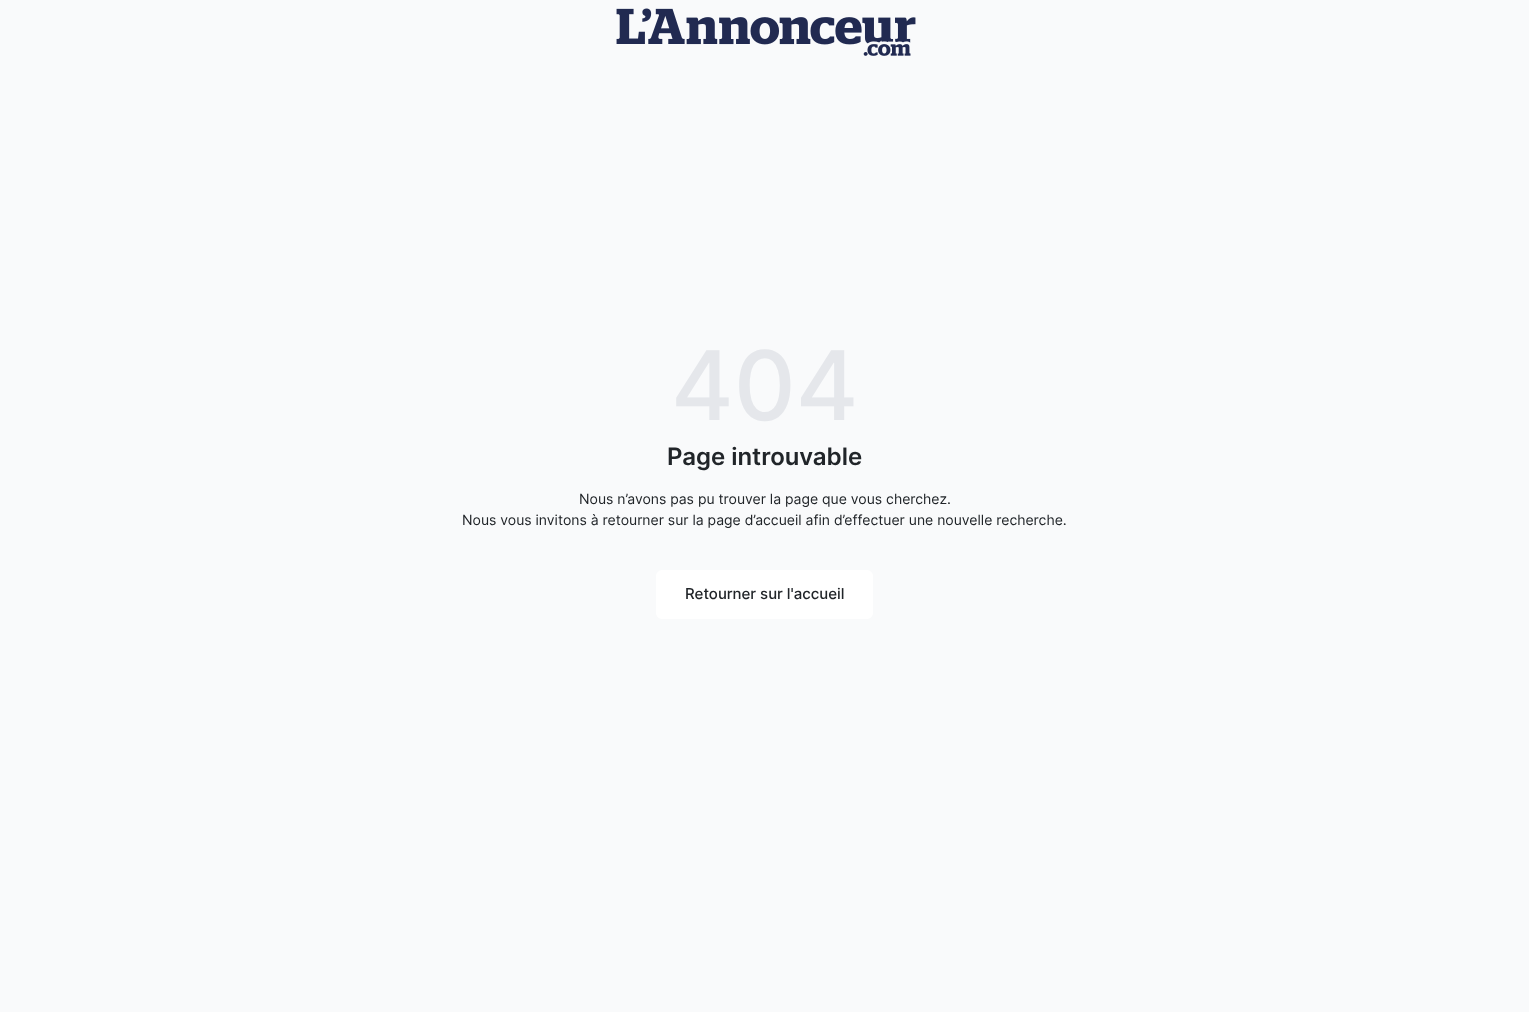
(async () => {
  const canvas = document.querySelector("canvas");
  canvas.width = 1529;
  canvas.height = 1012;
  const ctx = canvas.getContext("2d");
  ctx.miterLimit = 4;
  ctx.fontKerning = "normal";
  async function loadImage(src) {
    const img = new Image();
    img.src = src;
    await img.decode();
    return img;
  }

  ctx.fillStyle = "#f9fafb";
  ctx.fillRect(0, 0, 1529, 1012);
  ctx.drawImage(await loadImage("img/1.png"), 616, 8, 300, 48);
  ctx.fillStyle = "#ffffff";
  ctx.beginPath();
  ctx.roundRect(656, 570, 217, 49, 6);
  ctx.fill();
  ctx.font = "500 96px Inter";
  ctx.fillStyle = "#e5e7eb";
  ctx.fillText("404", 671, 420);
  ctx.font = "600 24px Inter";
  ctx.fillStyle = "#212529";
  ctx.fillText("Page introuvable", 667, 465);
  ctx.font = "14px Inter";
  ctx.fillText("Nous n’avons pas pu trouver la page que vous cherchez.", 579, 504);
  ctx.fillText("Nous vous invitons à retourner sur la page d’accueil afin d’effectuer une nouvelle recherche.", 462, 525);
  ctx.font = "500 15px Inter";
  ctx.fillText("Retourner sur l'accueil", 685, 599);
})();
